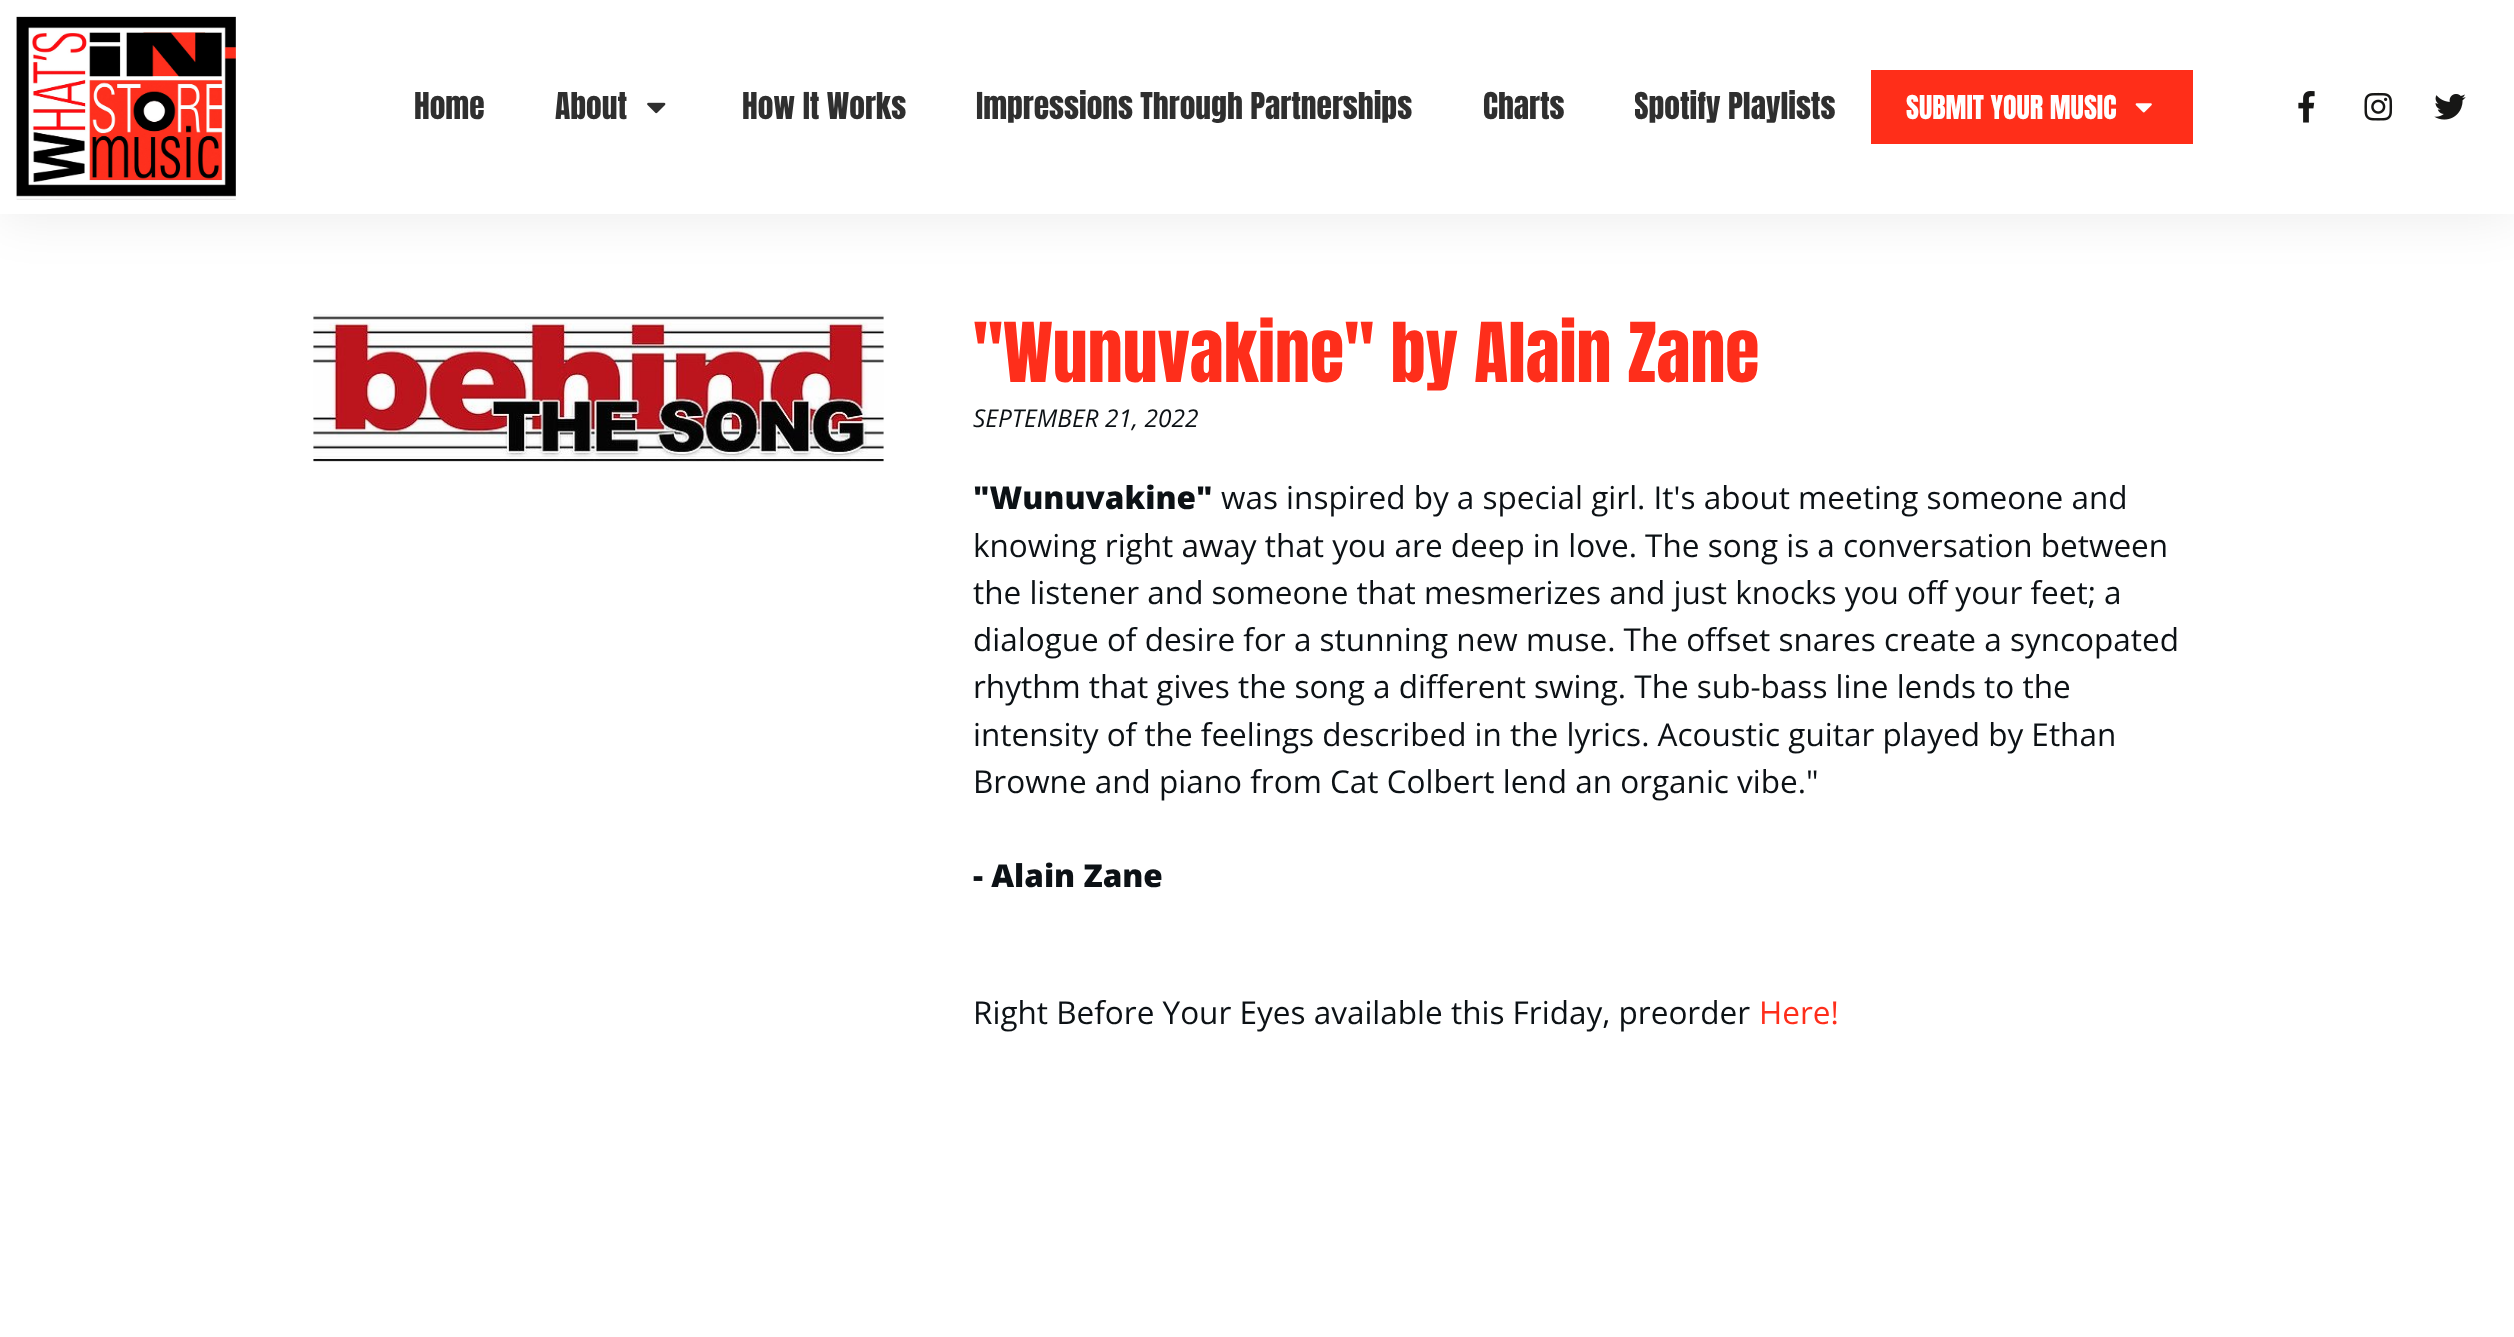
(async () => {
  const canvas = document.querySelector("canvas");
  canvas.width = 2514;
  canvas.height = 1337;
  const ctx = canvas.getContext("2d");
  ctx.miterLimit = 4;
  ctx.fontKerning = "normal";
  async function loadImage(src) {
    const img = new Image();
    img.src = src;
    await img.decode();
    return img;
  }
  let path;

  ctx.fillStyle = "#ffffff";
  ctx.fillRect(0, 0, 2514, 1337);
  ctx.save();
  path = new Path2D("M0 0H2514V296H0ZM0 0H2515V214H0Z");
  ctx.clip(path, "evenodd");
  ctx.fillStyle = "rgba(0, 0, 0, 0.08)";
  ctx.filter = "blur(26px)";
  ctx.beginPath();
  ctx.rect(0, 4, 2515, 213);
  ctx.fill();
  ctx.filter = "none";
  ctx.restore();
  ctx.fillStyle = "rgba(255, 255, 255, 0.85)";
  ctx.fillRect(2, 213, 2511, 1);
  ctx.drawImage(await loadImage("img/1.png"), 16, 16, 220, 184);
  ctx.drawImage(await loadImage("img/2.png"), 647, 102, 19, 12);
  ctx.fillStyle = "#ff2e19";
  ctx.fillRect(1871, 70, 322, 74);
  ctx.drawImage(await loadImage("img/3.png"), 2135, 103, 17, 10);
  ctx.drawImage(await loadImage("img/4.png"), 2298, 91, 17, 32);
  ctx.drawImage(await loadImage("img/5.png"), 2364, 92, 29, 29);
  ctx.drawImage(await loadImage("img/6.png"), 2434, 94, 32, 26);
  ctx.drawImage(await loadImage("img/7.png"), 313, 314, 571, 148);
  ctx.font = "31.5px Anton";
  ctx.fillStyle = "#2f2f2f";
  for (const [text, x, y] of [
    ["Home", 414, 119],
    ["About", 555, 119],
    ["How It Works", 742, 119],
    ["Impressions Through Partnerships", 976, 119],
    ["Charts", 1483, 119],
  ]) {
    ctx.fillText(text, x, y);
  }
  ctx.save();
  ctx.beginPath();
  ctx.rect(1635, 75, 201, 63);
  ctx.clip();
  ctx.fillText("Spotify Playlists", 1634, 119);
  ctx.restore();
  ctx.font = "28px Anton";
  ctx.fillStyle = "#ffffff";
  ctx.fillText("SUBMIT YOUR MUSIC", 1906, 119);
  ctx.font = "70px Anton";
  ctx.fillStyle = "#fe2e1b";
  ctx.fillText("\"Wunuvakine\" by Alain Zane", 973, 382);
  ctx.font = "italic 24.5px Open Sans";
  ctx.fillStyle = "#0c1115";
  ctx.fillText("SEPTEMBER 21, 2022", 973, 427);
  ctx.font = "800 31.5px Open Sans";
  ctx.fillText("\"Wunuvakine\"", 973, 509);
  ctx.font = "31.5px Open Sans";
  for (const [text, x, y] of [
    ["was inspired by a special girl. It's about meeting someone and", 1221, 509],
    ["knowing right away that you are deep in love. The song is a conversation between", 973, 557],
    ["the listener and someone that mesmerizes and just knocks you off your feet; a", 973, 604],
    ["dialogue of desire for a stunning new muse. The offset snares create a syncopated", 973, 651],
    ["rhythm that gives the song a different swing. The sub-bass line lends to the", 973, 698],
    ["intensity of the feelings described in the lyrics. Acoustic guitar played by Ethan", 973, 746],
    ["Browne and piano from Cat Colbert lend an organic vibe.\"", 973, 793],
  ]) {
    ctx.fillText(text, x, y);
  }
  ctx.font = "800 31.5px Open Sans";
  ctx.fillText("- Alain Zane", 973, 887);
  ctx.font = "31.5px Open Sans";
  ctx.fillText("Right Before Your Eyes available this Friday, preorder", 973, 1024);
  ctx.fillStyle = "#fe2e1b";
  ctx.fillText("Here!", 1759, 1024);
})();
